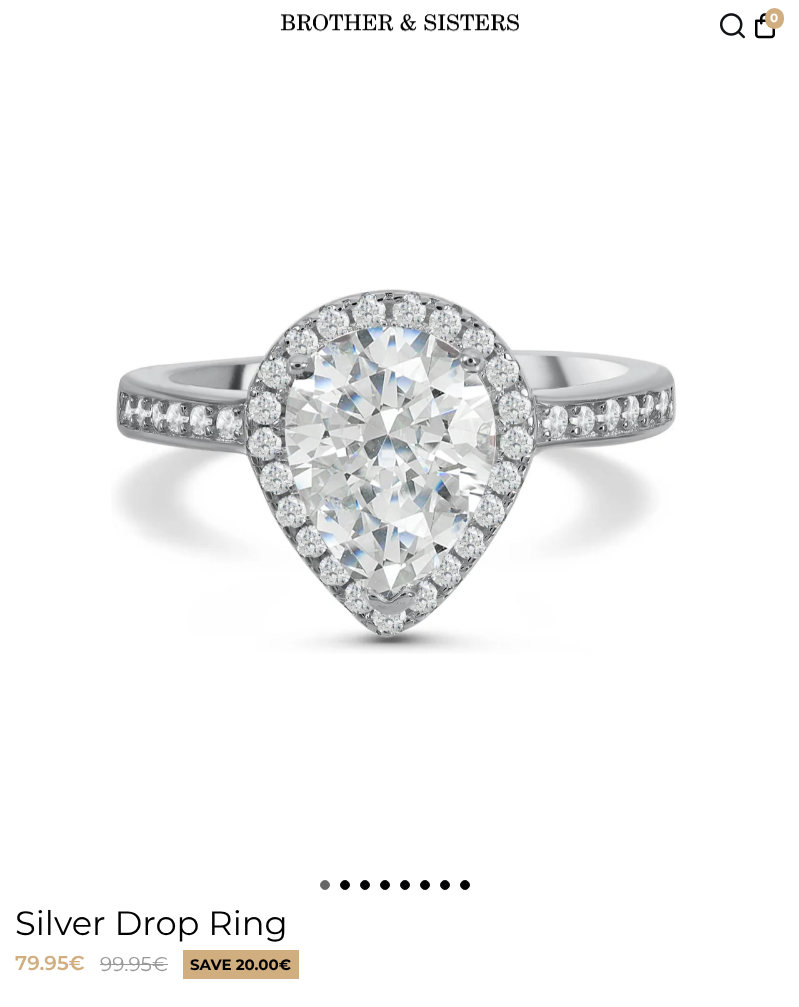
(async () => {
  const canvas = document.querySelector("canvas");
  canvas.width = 799;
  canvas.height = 1007;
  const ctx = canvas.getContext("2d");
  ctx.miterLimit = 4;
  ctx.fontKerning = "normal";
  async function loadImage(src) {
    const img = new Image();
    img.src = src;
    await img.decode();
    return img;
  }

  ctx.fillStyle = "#ffffff";
  ctx.fillRect(0, 0, 799, 1007);
  ctx.drawImage(await loadImage("img/1.png"), 280, 14, 239, 18);
  ctx.drawImage(await loadImage("img/2.png"), 719, 13, 26, 26);
  ctx.drawImage(await loadImage("img/3.png"), 755, 13, 20, 26);
  ctx.fillStyle = "#d0ae7f";
  ctx.beginPath();
  ctx.roundRect(765, 8, 19, 21, 9.5);
  ctx.fill();
  ctx.drawImage(await loadImage("img/4.png"), 111, 289, 566, 365);
  ctx.fillStyle = "#666666";
  ctx.beginPath();
  ctx.arc(325, 885, 4.5, 0, Math.PI * 2);
  ctx.fill();
  ctx.strokeStyle = "#717174";
  ctx.stroke();
  ctx.fillStyle = "#000000";
  ctx.beginPath();
  ctx.arc(345, 885, 4.5, 0, Math.PI * 2);
  ctx.fill();
  ctx.strokeStyle = "#121317";
  ctx.stroke();
  ctx.beginPath();
  ctx.arc(365, 885, 4.5, 0, Math.PI * 2);
  ctx.fill();
  ctx.stroke();
  ctx.beginPath();
  ctx.arc(385, 885, 4.5, 0, Math.PI * 2);
  ctx.fill();
  ctx.stroke();
  ctx.beginPath();
  ctx.arc(405, 885, 4.5, 0, Math.PI * 2);
  ctx.fill();
  ctx.stroke();
  ctx.beginPath();
  ctx.arc(425, 885, 4.5, 0, Math.PI * 2);
  ctx.fill();
  ctx.stroke();
  ctx.beginPath();
  ctx.arc(445, 885, 4.5, 0, Math.PI * 2);
  ctx.fill();
  ctx.stroke();
  ctx.beginPath();
  ctx.arc(465, 885, 4.5, 0, Math.PI * 2);
  ctx.fill();
  ctx.stroke();
  ctx.fillStyle = "#979797";
  ctx.fillRect(100, 964, 68, 1);
  ctx.fillStyle = "#d0ae7f";
  ctx.fillRect(183, 950, 116, 29);
  ctx.font = "bold 12px Montserrat";
  ctx.fillStyle = "#ffffff";
  ctx.fillText("0", 770, 22);
  ctx.font = "33.75px Montserrat";
  ctx.fillStyle = "#000000";
  ctx.fillText("Silver Drop Ring", 15, 935);
  ctx.font = "600 20px Montserrat";
  ctx.fillStyle = "#d0ae7f";
  ctx.fillText("79.95€", 15, 970);
  ctx.font = "20px Montserrat";
  ctx.fillStyle = "#979797";
  ctx.fillText("99.95€", 100, 971);
  ctx.font = "bold 15px Montserrat";
  ctx.fillStyle = "#000000";
  ctx.fillText("SAVE 20.00€", 190, 970);
})();
